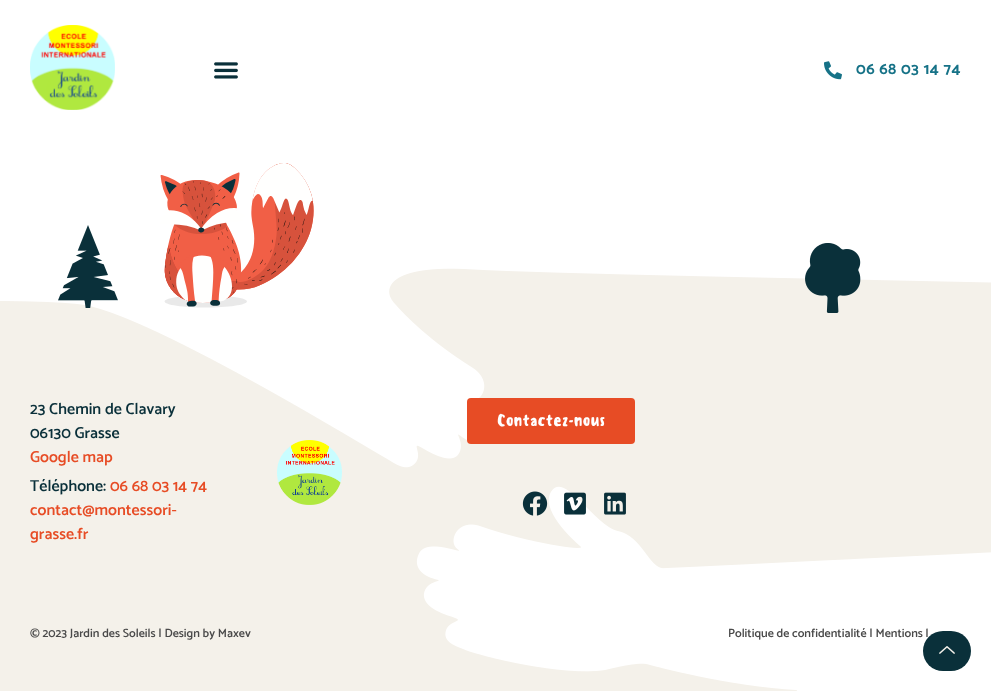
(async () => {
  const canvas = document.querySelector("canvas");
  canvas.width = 991;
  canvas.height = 691;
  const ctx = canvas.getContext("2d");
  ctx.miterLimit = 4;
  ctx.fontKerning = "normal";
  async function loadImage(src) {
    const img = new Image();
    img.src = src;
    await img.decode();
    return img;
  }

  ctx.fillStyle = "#ffffff";
  ctx.fillRect(0, 0, 991, 691);
  ctx.drawImage(await loadImage("img/1.png"), 30, 25, 85, 85);
  ctx.drawImage(await loadImage("img/2.png"), 214, 62, 24, 17);
  ctx.drawImage(await loadImage("img/3.png"), 824, 61, 18, 19);
  ctx.fillStyle = "#f4f1ea";
  ctx.fillRect(0, 268, 991, 423);
  ctx.drawImage(await loadImage("img/7.png"), 0, 268, 991, 423);
  ctx.drawImage(await loadImage("img/4.png"), 58, 225, 60, 83);
  ctx.drawImage(await loadImage("img/5.png"), 160, 163, 154, 145);
  ctx.drawImage(await loadImage("img/6.png"), 805, 243, 56, 70);
  ctx.fillStyle = "#e74c25";
  ctx.beginPath();
  ctx.roundRect(467, 398, 168, 46, 4);
  ctx.fill();
  ctx.drawImage(await loadImage("img/8.png"), 522, 491, 26, 25);
  ctx.drawImage(await loadImage("img/9.png"), 564, 492, 22, 23);
  ctx.drawImage(await loadImage("img/10.png"), 604, 492, 22, 23);
  ctx.drawImage(await loadImage("img/11.png"), 277, 440, 65, 65);
  ctx.letterSpacing = "0.5px";
  ctx.font = "bold 16px Catamaran";
  ctx.fillStyle = "#167287";
  ctx.fillText("06 68 03 14 74", 856, 74);
  ctx.letterSpacing = "0px";
  ctx.font = "600 16px Catamaran";
  ctx.fillStyle = "#0a303a";
  ctx.fillText("23 Chemin de Clavary", 30, 414);
  ctx.fillText("06130 Grasse", 30, 438);
  ctx.fillStyle = "#e74c25";
  ctx.fillText("Google map", 30, 462);
  ctx.fillStyle = "#0a303a";
  ctx.fillText("Téléphone:", 30, 491);
  ctx.fillStyle = "#e74c25";
  for (const [text, x, y] of [
    ["06 68 03 14 74", 110, 491],
    ["contact@montessori-", 30, 515],
    ["grasse.fr", 30, 539],
  ]) {
    ctx.fillText(text, x, y);
  }
  ctx.font = "500 16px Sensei";
  ctx.fillStyle = "#ffffff";
  ctx.fillText("Contactez-nous", 497, 426);
  ctx.font = "600 12px Catamaran";
  ctx.fillStyle = "#4a4a4a";
  ctx.fillText("© 2023 Jardin des Soleils | Design by Maxev", 30, 637);
  ctx.fillText("Politique de confidentialité | Mentions l", 728, 637);
  ctx.fillStyle = "#0a303a";
  ctx.beginPath();
  ctx.roundRect(923, 631, 48, 40, 20);
  ctx.fill();
  ctx.drawImage(await loadImage("img/12.png"), 939, 646, 16, 8);
})();
